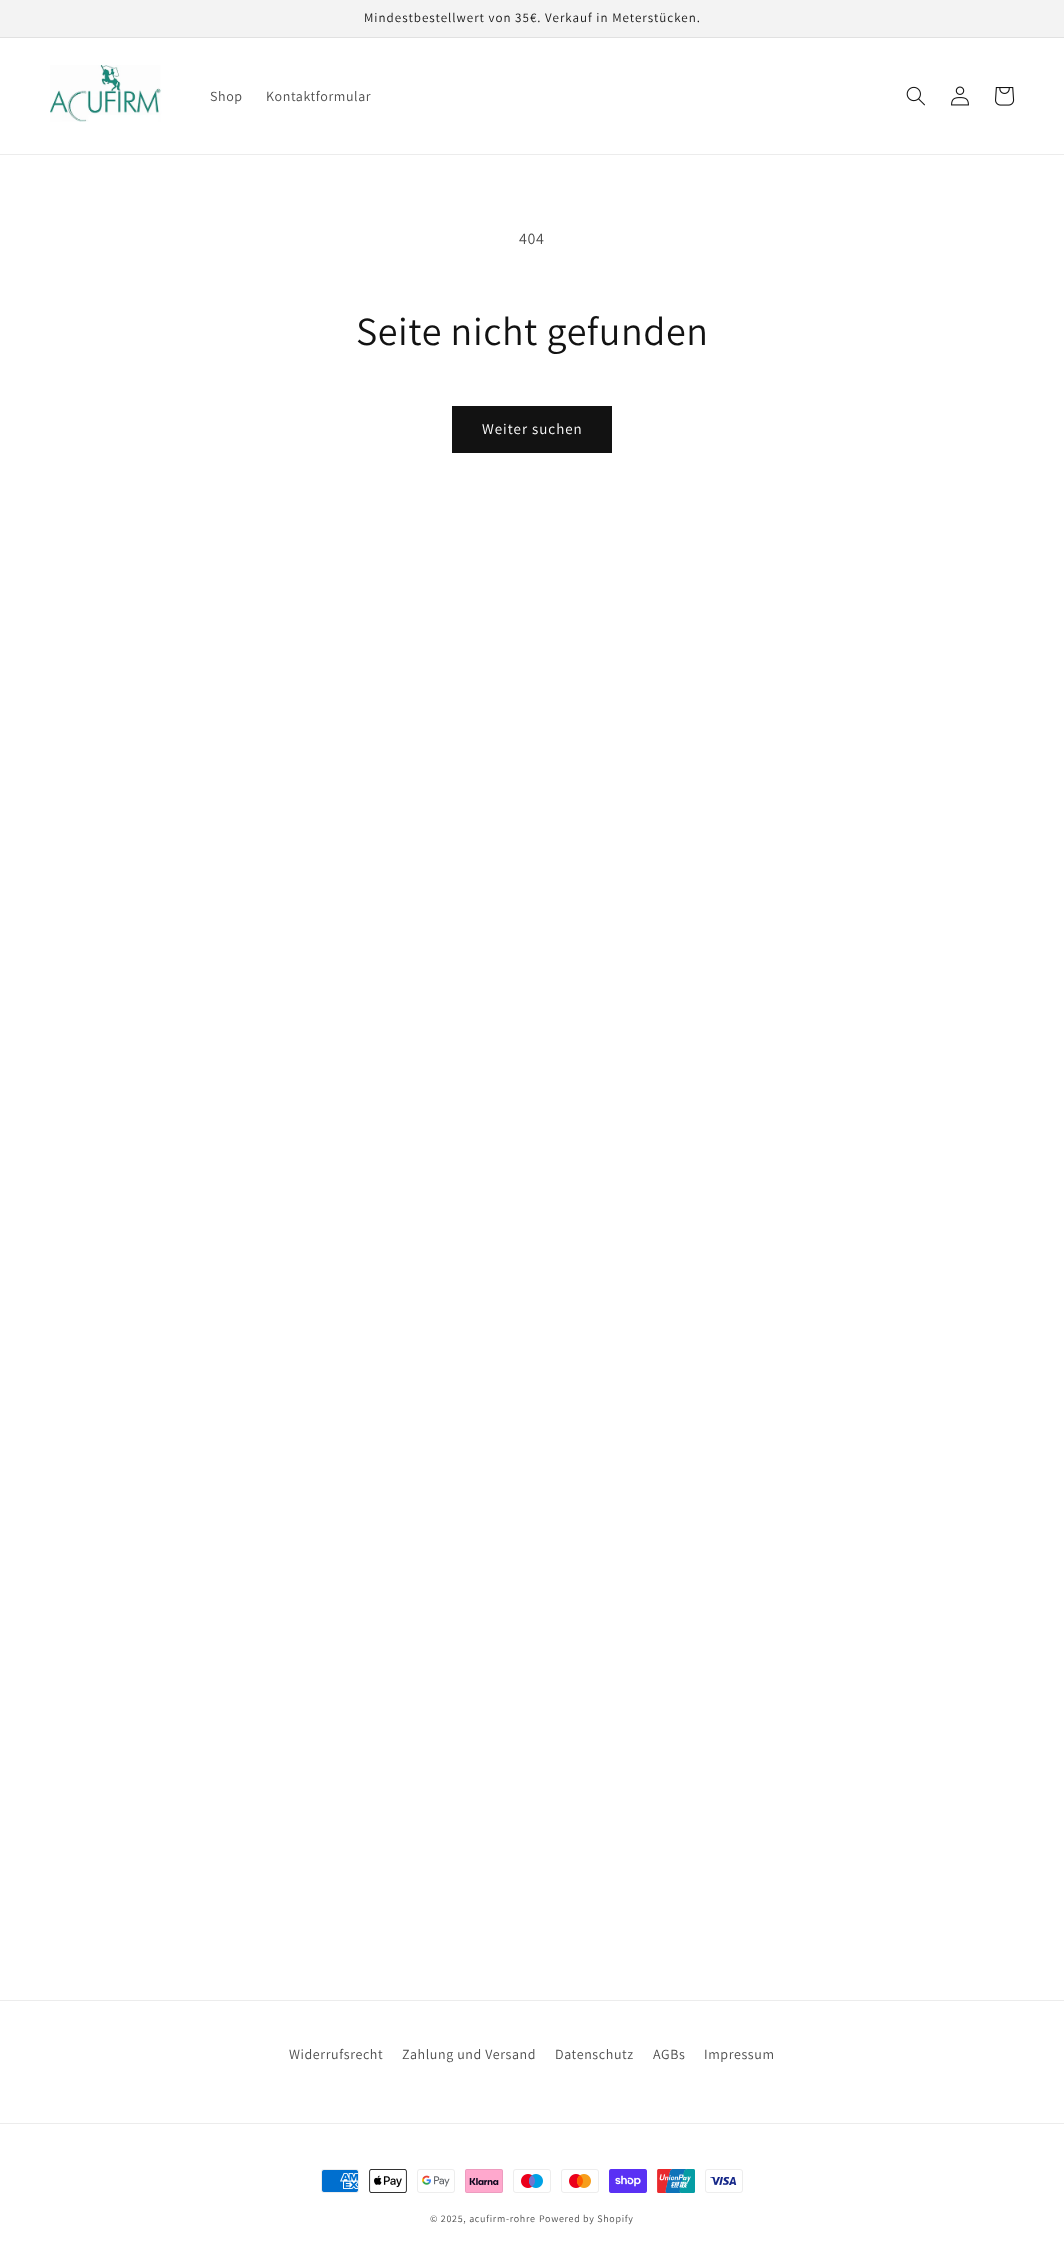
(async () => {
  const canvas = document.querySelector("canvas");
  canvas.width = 1064;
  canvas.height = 2264;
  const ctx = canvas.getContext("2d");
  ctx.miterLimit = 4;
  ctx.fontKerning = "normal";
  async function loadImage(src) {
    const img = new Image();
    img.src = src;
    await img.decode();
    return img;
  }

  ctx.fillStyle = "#ffffff";
  ctx.fillRect(0, 0, 1064, 2264);
  for (const [x, y, w, h, color] of [
    [0, 0, 1064, 37, "#f3f3f3"],
    [0, 37, 1064, 1, "#e1e1e1"],
    [0, 154, 1064, 1, "#ececec"],
  ]) {
    ctx.fillStyle = color;
    ctx.fillRect(x, y, w, h);
  }
  ctx.drawImage(await loadImage("img/1.png"), 50, 65, 112, 57);
  ctx.drawImage(await loadImage("img/2.png"), 906, 86, 19, 20);
  ctx.drawImage(await loadImage("img/3.png"), 951, 86, 18, 20);
  ctx.drawImage(await loadImage("img/4.png"), 995, 87, 20, 19);
  for (const [x, y, w, h, color] of [
    [452, 406, 160, 47, "#121212"],
    [0, 2000, 1064, 1, "#ececec"],
    [0, 2123, 1064, 1, "#ececec"],
  ]) {
    ctx.fillStyle = color;
    ctx.fillRect(x, y, w, h);
  }
  ctx.drawImage(await loadImage("img/5.png"), 321, 2169, 38, 24);
  ctx.drawImage(await loadImage("img/6.png"), 369, 2169, 38, 24);
  ctx.drawImage(await loadImage("img/7.png"), 417, 2169, 38, 24);
  ctx.drawImage(await loadImage("img/8.png"), 465, 2169, 38, 24);
  ctx.drawImage(await loadImage("img/9.png"), 513, 2169, 38, 24);
  ctx.drawImage(await loadImage("img/10.png"), 561, 2169, 38, 24);
  ctx.drawImage(await loadImage("img/11.png"), 609, 2169, 38, 24);
  ctx.drawImage(await loadImage("img/12.png"), 657, 2169, 38, 24);
  ctx.drawImage(await loadImage("img/13.png"), 705, 2169, 38, 24);
  ctx.letterSpacing = "1px";
  ctx.font = "13px Assistant";
  ctx.fillStyle = "#121212";
  ctx.fillText("Mindestbestellwert von 35€. Verkauf in Meterstücken.", 364, 22);
  ctx.letterSpacing = "0.6px";
  ctx.font = "14px Assistant";
  ctx.fillStyle = "#4d4d4d";
  ctx.fillText("Shop", 210, 101);
  ctx.fillText("Kontaktformular", 266, 101);
  ctx.font = "16px Assistant";
  ctx.fillText("404", 519, 244);
  ctx.font = "40px Assistant";
  ctx.fillStyle = "#121212";
  ctx.fillText("Seite nicht gefunden", 356, 345);
  ctx.letterSpacing = "1px";
  ctx.font = "15px Assistant";
  ctx.fillStyle = "#ffffff";
  ctx.fillText("Weiter suchen", 482, 434);
  ctx.letterSpacing = "0.6px";
  ctx.font = "14px Assistant";
  ctx.fillStyle = "#4d4d4d";
  for (const [text, x, y] of [
    ["Widerrufsrecht", 289, 2059],
    ["Zahlung und Versand", 402, 2059],
    ["Datenschutz", 555, 2059],
    ["AGBs", 653, 2059],
    ["Impressum", 704, 2059],
  ]) {
    ctx.fillText(text, x, y);
  }
  ctx.letterSpacing = "0.7px";
  ctx.font = "10px Assistant";
  ctx.fillText("© 2025, acufirm-rohre", 430, 2222);
  ctx.fillText("Powered by Shopify", 539, 2222);
})();
